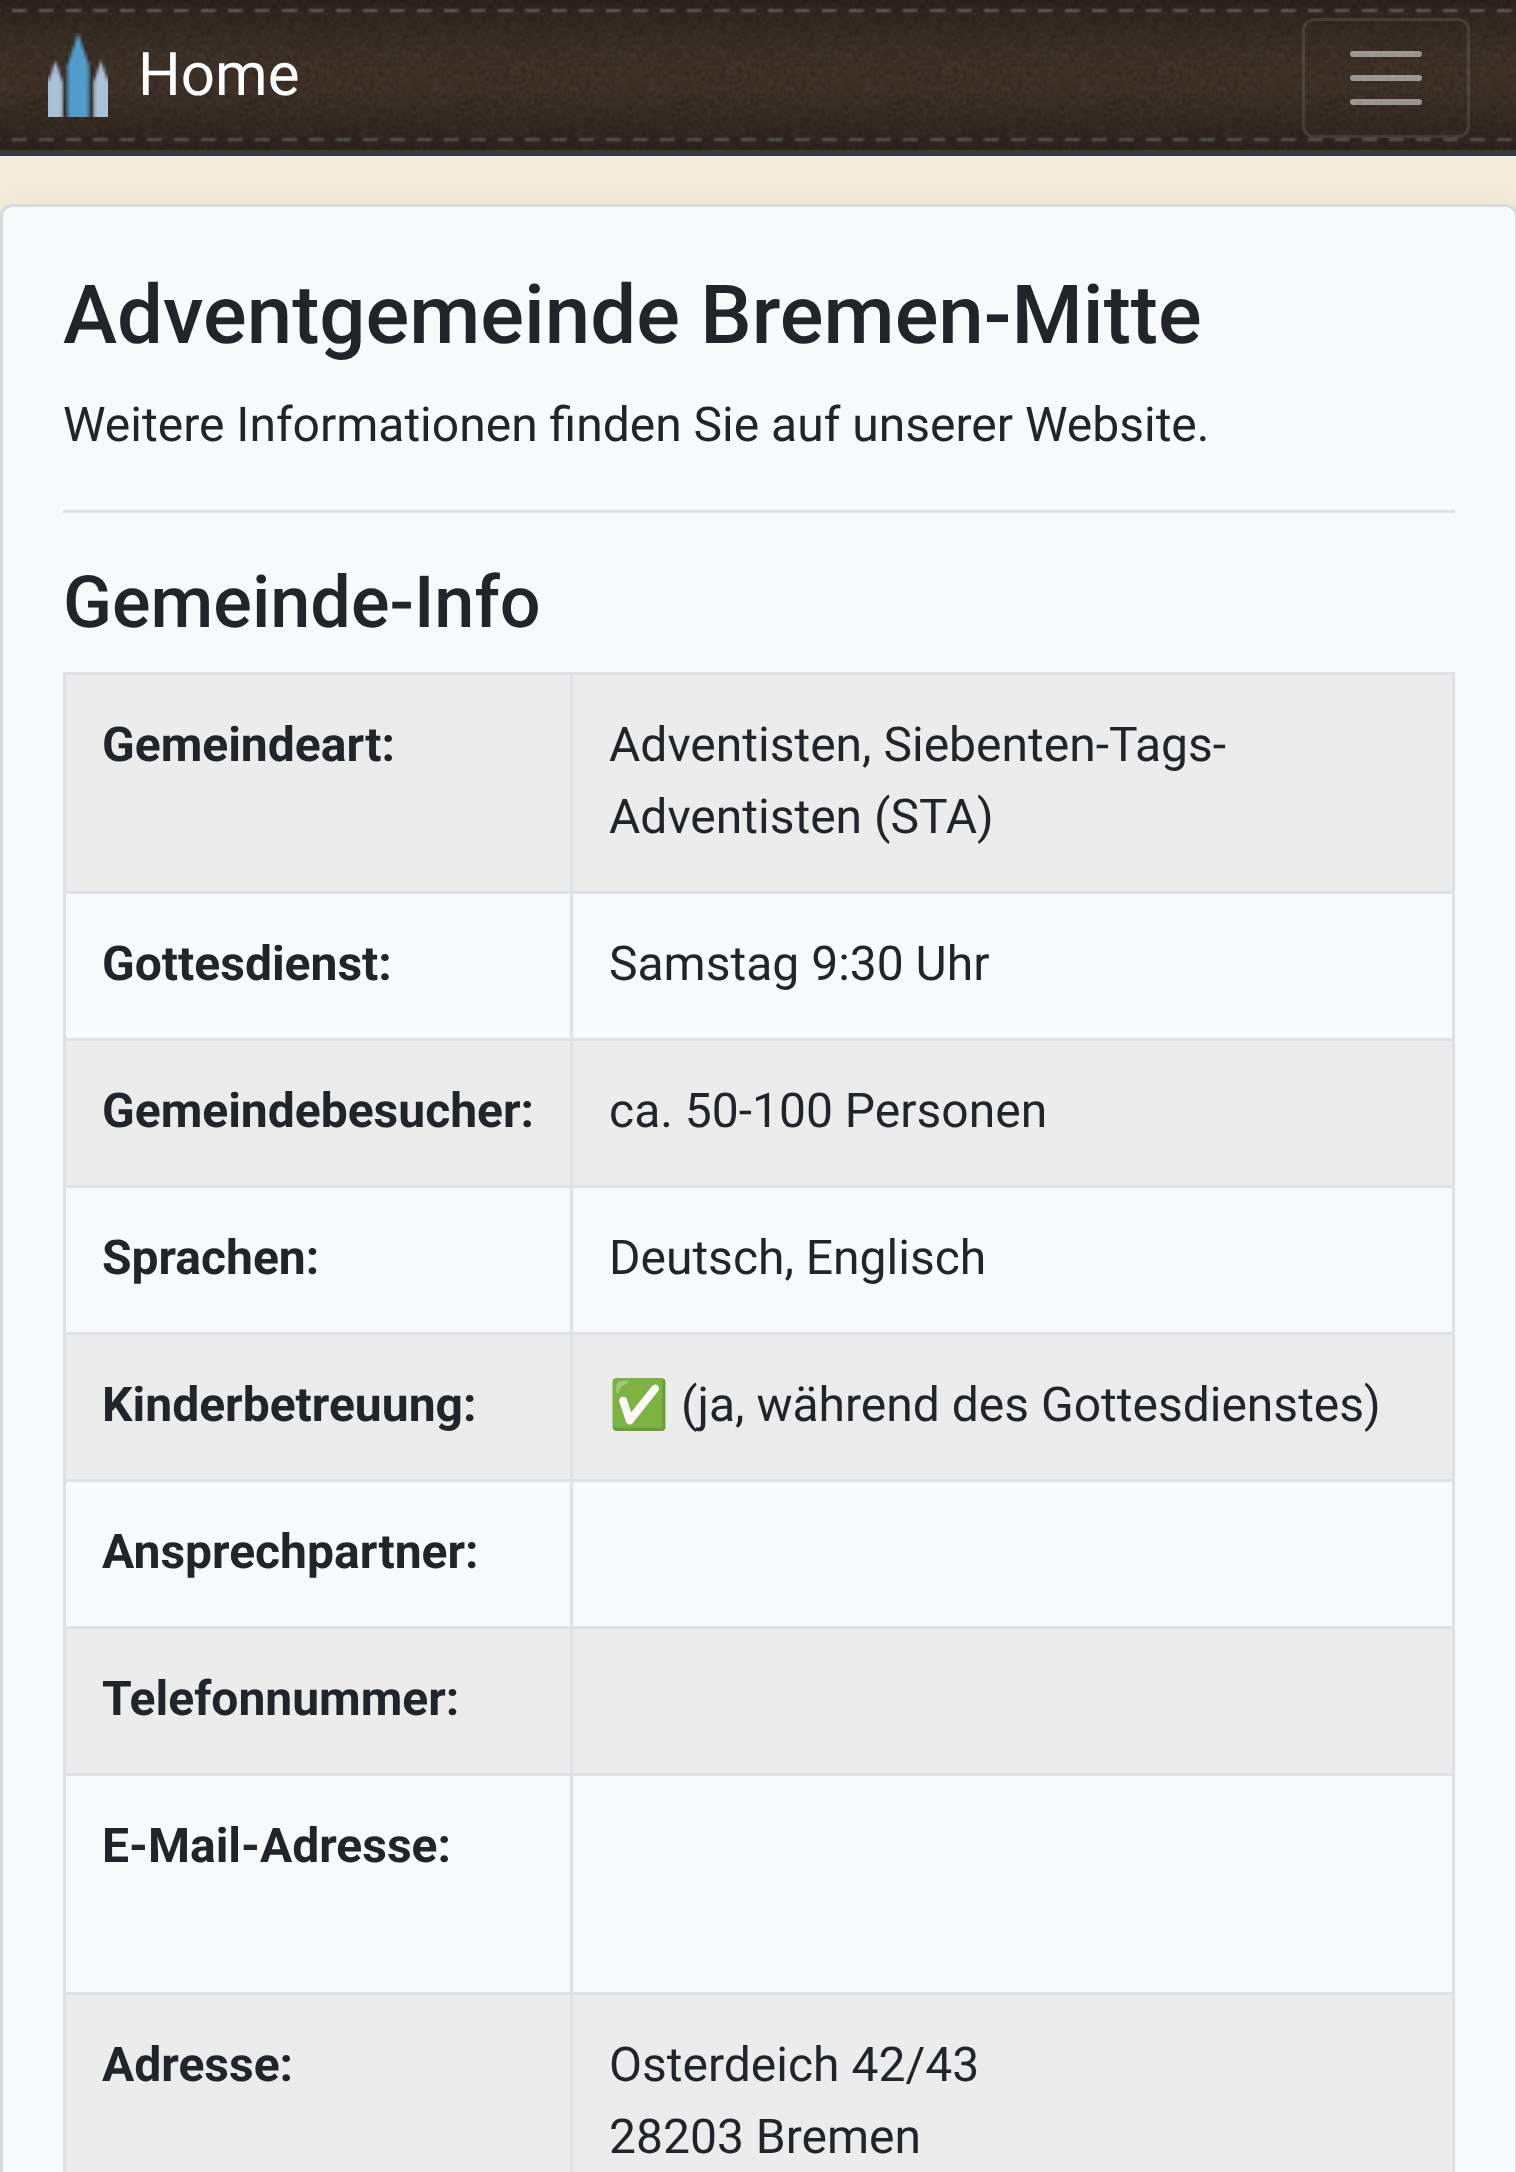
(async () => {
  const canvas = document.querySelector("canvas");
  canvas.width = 1516;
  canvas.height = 2172;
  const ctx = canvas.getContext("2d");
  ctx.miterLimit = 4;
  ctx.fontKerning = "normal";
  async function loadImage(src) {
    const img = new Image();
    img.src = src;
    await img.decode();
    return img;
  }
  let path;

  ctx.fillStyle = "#f4eddb";
  ctx.fillRect(0, 0, 1516, 2172);
  ctx.fillStyle = "#343a40";
  ctx.fillRect(0, 150, 1516, 6);
  ctx.drawImage(await loadImage("img/1.png"), 0, 0, 1516, 150);
  ctx.drawImage(await loadImage("img/2.png"), 48, 33, 60, 84);
  ctx.beginPath();
  ctx.roundRect(1303.5, 19.5, 165, 117, 10.5);
  ctx.strokeStyle = "rgba(255, 255, 255, 0.1)";
  ctx.lineWidth = 3;
  ctx.stroke();
  path = new Path2D("M1353 54H1419M1353 78H1419M1353 102H1419");
  ctx.strokeStyle = "rgba(255, 255, 255, 0.5)";
  ctx.lineWidth = 6;
  ctx.lineCap = "round";
  ctx.stroke(path);
  ctx.fillStyle = "rgba(0, 0, 0, 0.1)";
  ctx.filter = "blur(18px)";
  ctx.beginPath();
  ctx.roundRect(0, 216, 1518, 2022, 12);
  ctx.fill();
  ctx.filter = "none";
  ctx.fillStyle = "#f8f9fa";
  ctx.beginPath();
  ctx.roundRect(0, 204, 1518, 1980, 12);
  ctx.fill();
  ctx.beginPath();
  ctx.roundRect(1.5, 205.5, 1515, 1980, 10.5);
  ctx.strokeStyle = "rgba(0, 0, 0, 0.12)";
  ctx.lineWidth = 3;
  ctx.stroke();
  for (const [x, y, w, h, color] of [
    [63, 510, 1392, 3, "#dfe0e1"],
    [66, 675, 1386, 216, "#ececec"],
    [570, 672, 885, 3, "#dee2e6"],
    [570, 891, 885, 3, "#dee2e6"],
    [570, 1038, 885, 3, "#dee2e6"],
    [66, 1041, 1386, 144, "#ececed"],
    [570, 1185, 885, 3, "#dee2e6"],
    [570, 1332, 885, 3, "#dee2e6"],
    [66, 1335, 1386, 144, "#ececed"],
    [570, 1479, 885, 3, "#dee2e6"],
    [570, 1626, 885, 3, "#dee2e6"],
    [66, 1629, 1386, 144, "#ececed"],
    [570, 1773, 885, 3, "#dee2e6"],
    [570, 1992, 885, 3, "#dee2e6"],
    [66, 1995, 1386, 177, "#ececed"],
    [570, 1992, 3, 180, "#dee2e6"],
    [63, 1992, 510, 3, "#dee2e6"],
    [570, 1773, 3, 222, "#dee2e6"],
    [63, 1773, 510, 3, "#dee2e6"],
    [570, 1626, 3, 150, "#dee2e6"],
    [63, 1626, 510, 3, "#dee2e6"],
    [570, 1479, 3, 150, "#dee2e6"],
    [63, 1479, 510, 3, "#dee2e6"],
    [570, 1332, 3, 150, "#dee2e6"],
    [63, 1332, 510, 3, "#dee2e6"],
    [570, 1185, 3, 150, "#dee2e6"],
    [63, 1185, 510, 3, "#dee2e6"],
    [570, 1038, 3, 150, "#dee2e6"],
    [63, 1038, 510, 3, "#dee2e6"],
    [570, 891, 3, 150, "#dee2e6"],
    [63, 891, 510, 3, "#dee2e6"],
    [570, 672, 3, 222, "#dee2e6"],
    [63, 672, 510, 3, "#dee2e6"],
    [63, 1992, 3, 180, "#dee2e6"],
    [63, 1773, 3, 222, "#dee2e6"],
    [63, 1626, 3, 150, "#dee2e6"],
    [63, 1479, 3, 150, "#dee2e6"],
    [63, 1332, 3, 150, "#dee2e6"],
    [63, 1185, 3, 150, "#dee2e6"],
    [63, 1038, 3, 150, "#dee2e6"],
    [63, 891, 3, 150, "#dee2e6"],
    [63, 672, 3, 222, "#dee2e6"],
    [1452, 1992, 3, 180, "#dee2e6"],
    [1452, 1773, 3, 222, "#dee2e6"],
    [1452, 1626, 3, 150, "#dee2e6"],
    [1452, 1479, 3, 150, "#dee2e6"],
    [1452, 1332, 3, 150, "#dee2e6"],
    [1452, 1185, 3, 150, "#dee2e6"],
    [1452, 1038, 3, 150, "#dee2e6"],
    [1452, 891, 3, 150, "#dee2e6"],
    [1452, 672, 3, 222, "#dee2e6"],
  ]) {
    ctx.fillStyle = color;
    ctx.fillRect(x, y, w, h);
  }
  ctx.font = "60px Roboto";
  ctx.fillStyle = "#ffffff";
  ctx.fillText("Home", 138, 95);
  ctx.font = "500 81.6px Roboto";
  ctx.fillStyle = "#212529";
  ctx.fillText("Adventgemeinde Bremen-Mitte", 63, 343);
  ctx.font = "48px Roboto";
  ctx.fillText("Weitere Informationen finden Sie auf unserer Website.", 63, 441);
  ctx.font = "500 72px Roboto";
  ctx.fillText("Gemeinde-Info", 63, 627);
  ctx.font = "bold 48px Roboto";
  ctx.fillText("Gemeindeart:", 102, 761);
  ctx.font = "48px Roboto";
  ctx.fillText("Adventisten, Siebenten-Tags-", 609, 761);
  ctx.fillText("Adventisten (STA)", 609, 833);
  ctx.font = "bold 48px Roboto";
  ctx.fillText("Gottesdienst:", 102, 980);
  ctx.font = "48px Roboto";
  ctx.fillText("Samstag 9:30 Uhr", 609, 980);
  ctx.font = "bold 48px Roboto";
  ctx.fillText("Gemeindebesucher:", 102, 1127);
  ctx.font = "48px Roboto";
  ctx.fillText("ca. 50-100 Personen", 609, 1127);
  ctx.font = "bold 48px Roboto";
  ctx.fillText("Sprachen:", 102, 1274);
  ctx.font = "48px Roboto";
  ctx.fillText("Deutsch, Englisch", 609, 1274);
  ctx.font = "bold 48px Roboto";
  ctx.fillText("Kinderbetreuung:", 102, 1421);
  ctx.font = "48px Noto Color Emoji";
  ctx.fillText("✅", 609, 1421);
  ctx.font = "48px Roboto";
  ctx.fillText("(ja, während des Gottesdienstes)", 681, 1421);
  ctx.font = "bold 48px Roboto";
  for (const [text, x, y] of [
    ["Ansprechpartner:", 102, 1568],
    ["Telefonnummer:", 102, 1715],
    ["E-Mail-Adresse:", 102, 1862],
    ["Adresse:", 102, 2081],
  ]) {
    ctx.fillText(text, x, y);
  }
  ctx.font = "48px Roboto";
  ctx.fillText("Osterdeich 42/43", 609, 2081);
  ctx.fillText("28203 Bremen", 609, 2153);
})();
